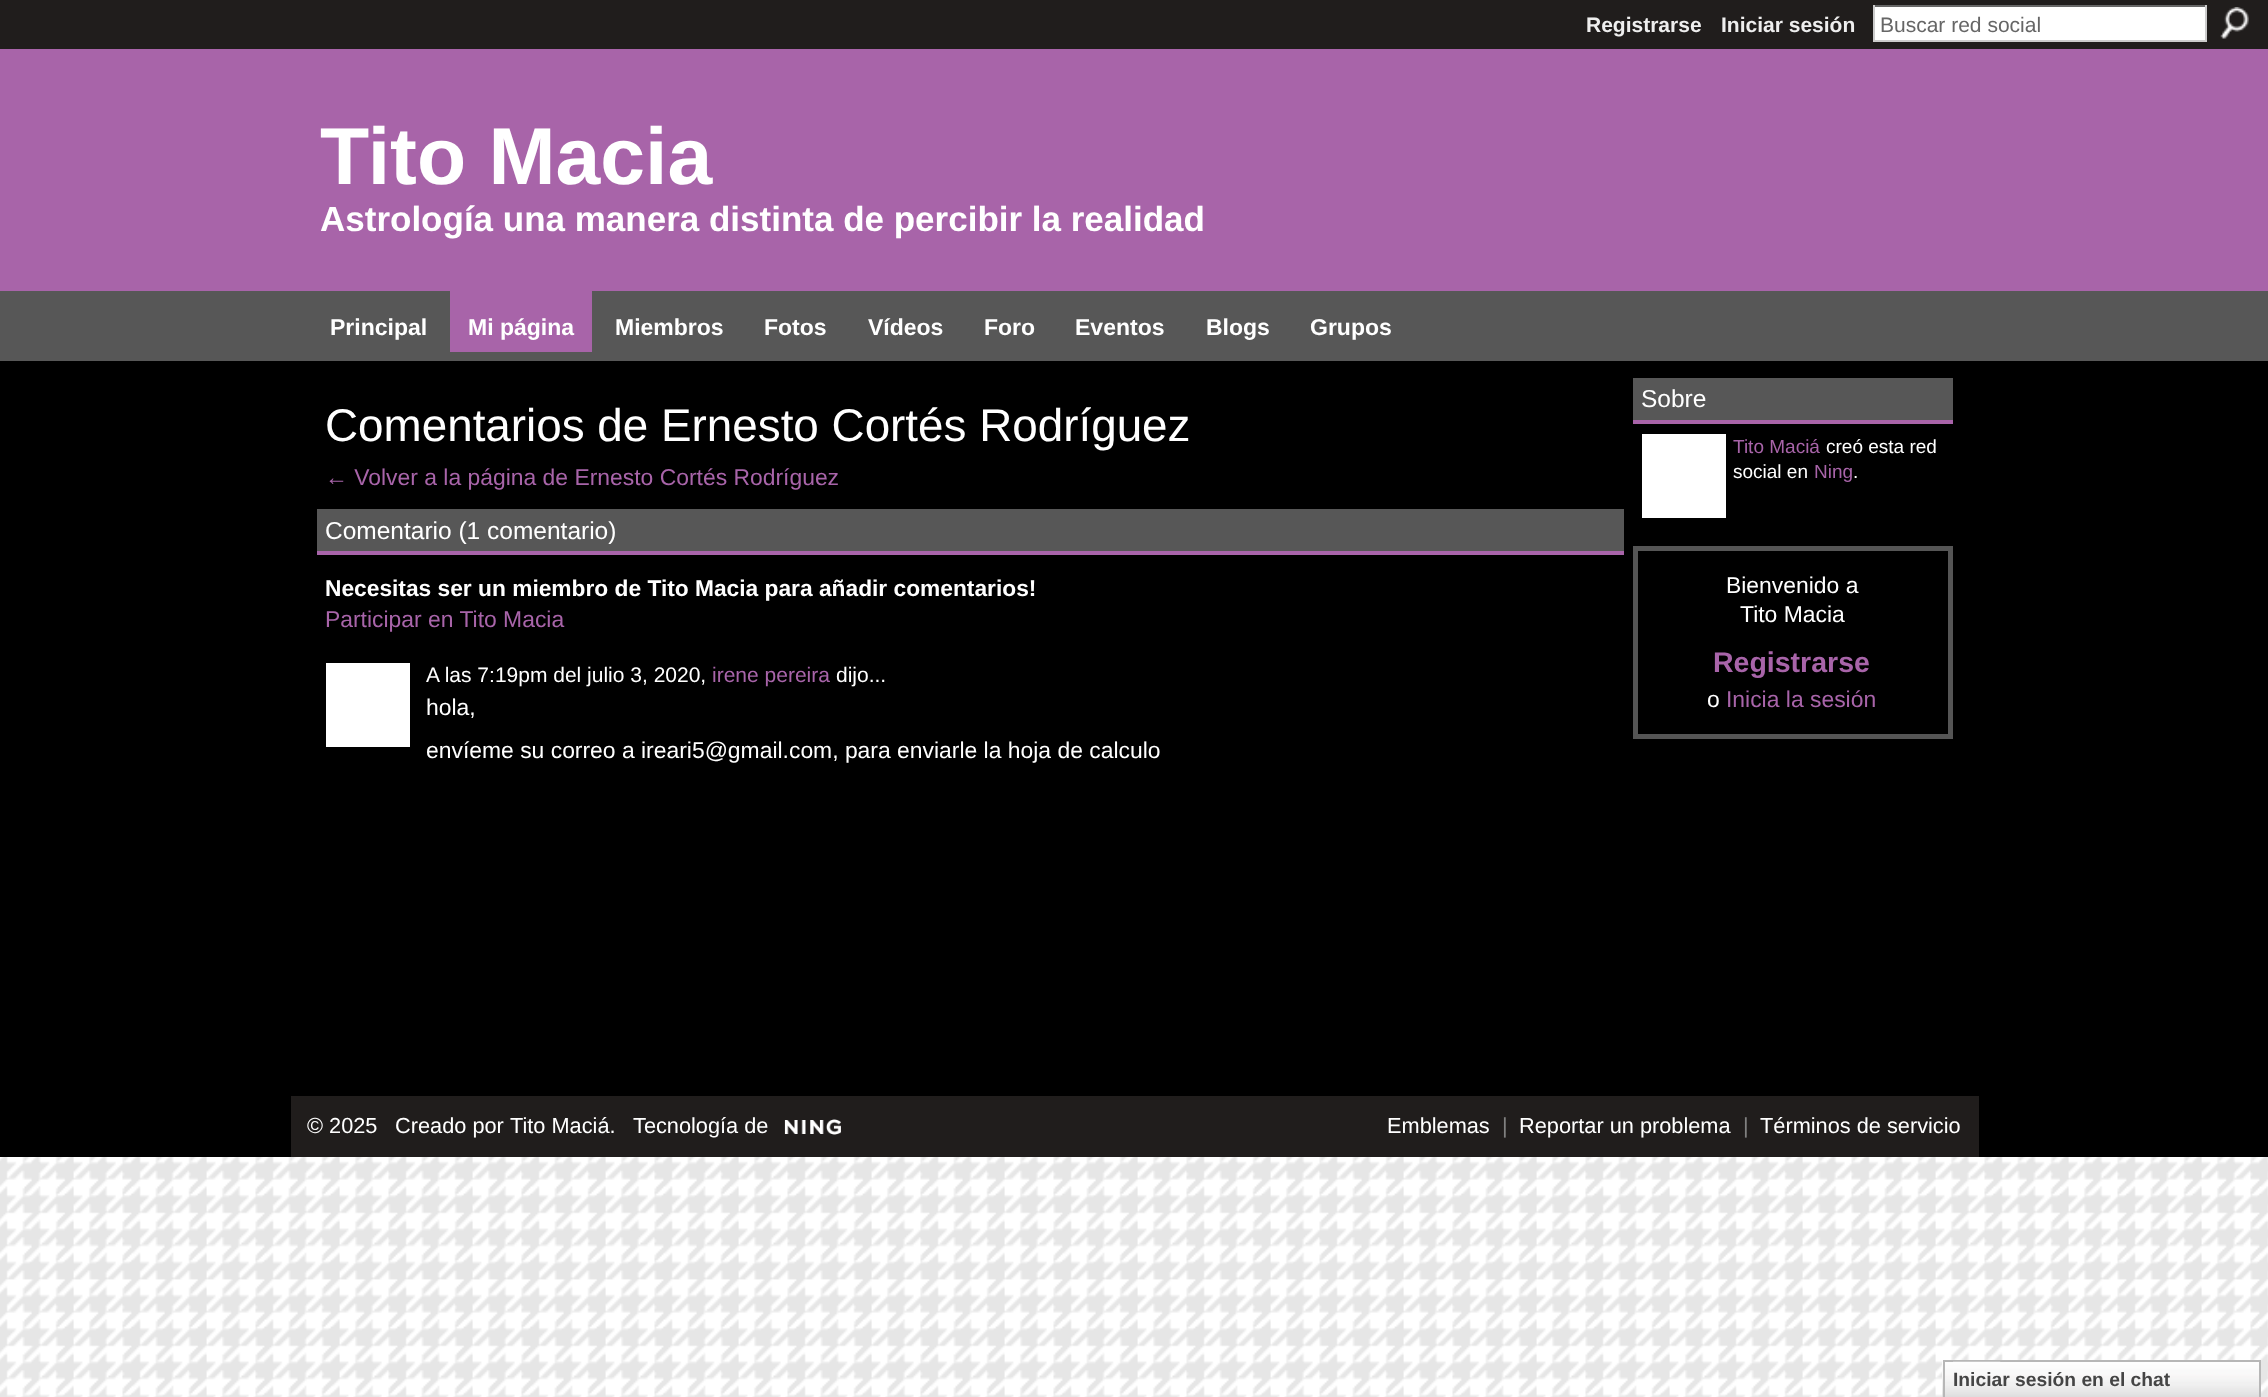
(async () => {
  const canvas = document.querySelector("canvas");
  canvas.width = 2268;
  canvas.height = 1397;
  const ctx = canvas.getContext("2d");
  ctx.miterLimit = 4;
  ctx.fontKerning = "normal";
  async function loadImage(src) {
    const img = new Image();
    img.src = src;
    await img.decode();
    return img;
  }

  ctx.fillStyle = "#ffffff";
  ctx.fillRect(0, 0, 2268, 1397);
  ctx.drawImage(await loadImage("img/1.png"), 0, 1157, 2268, 240);
  for (const [x, y, w, h, color] of [
    [0, 0, 2268, 49, "#201d1c"],
    [1875, 7, 330, 33, "#ffffff"],
    [1873, 5, 334, 2, "#666666"],
    [2205, 5, 2, 37, "#cccccc"],
    [1873, 40, 334, 2, "#cccccc"],
    [1873, 5, 2, 37, "#cccccc"],
  ]) {
    ctx.fillStyle = color;
    ctx.fillRect(x, y, w, h);
  }
  ctx.drawImage(await loadImage("img/2.png"), 2220, 7, 29, 32);
  for (const [x, y, w, h, color] of [
    [0, 361, 2268, 796, "#000000"],
    [0, 49, 2268, 242, "#a864a9"],
    [0, 291, 2268, 70, "#575757"],
    [450, 291, 142, 61, "#a864a9"],
    [317, 509, 1307, 42, "#575757"],
    [317, 551, 1307, 4, "#a864a9"],
    [326, 663, 84, 84, "#ffffff"],
    [1633, 378, 320, 42, "#575757"],
    [1633, 420, 320, 4, "#a864a9"],
    [1642, 434, 84, 84, "#ffffff"],
  ]) {
    ctx.fillStyle = color;
    ctx.fillRect(x, y, w, h);
  }
  ctx.strokeStyle = "#555555";
  ctx.lineWidth = 5;
  ctx.strokeRect(1635.5, 548.5, 315, 188);
  ctx.fillStyle = "#201d1c";
  ctx.fillRect(291, 1096, 1688, 61);
  ctx.drawImage(await loadImage("img/3.png"), 784, 1119, 57, 16);
  ctx.drawImage(await loadImage("img/4.png"), 1942, 1361, 317, 36);
  ctx.strokeStyle = "#b7b7b7";
  ctx.lineWidth = 2;
  ctx.strokeRect(1944, 1361, 316, 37);
  ctx.drawImage(await loadImage("img/5.png"), 1953, 1361, 48, 1);
  ctx.font = "bold 21px Liberation Sans";
  ctx.fillStyle = "#eeeeee";
  ctx.fillText("Registrarse", 1586, 32);
  ctx.fillText("Iniciar sesión", 1721, 32);
  ctx.font = "21px Liberation Sans";
  ctx.fillStyle = "#666666";
  ctx.fillText("Buscar red social", 1880, 32);
  ctx.font = "bold 80.5px Liberation Sans";
  ctx.fillStyle = "#ffffff";
  ctx.fillText("Tito Macia", 320, 184);
  ctx.font = "bold 35px Liberation Sans";
  ctx.fillText("Astrología una manera distinta de percibir la realidad", 320, 231);
  ctx.font = "bold 23px Liberation Sans";
  for (const [text, x, y] of [
    ["Principal", 330, 335],
    ["Mi página", 468, 335],
    ["Miembros", 615, 335],
    ["Fotos", 764, 335],
    ["Vídeos", 868, 335],
    ["Foro", 984, 335],
    ["Eventos", 1075, 335],
    ["Blogs", 1206, 335],
    ["Grupos", 1310, 335],
  ]) {
    ctx.fillText(text, x, y);
  }
  ctx.font = "45.8px Liberation Sans";
  ctx.fillText("Comentarios de Ernesto Cortés Rodríguez", 325, 441);
  ctx.font = "22.9px Liberation Sans";
  ctx.fillStyle = "#a864a9";
  ctx.fillText("← Volver a la página de Ernesto Cortés Rodríguez", 325, 485);
  ctx.font = "24.5px Liberation Sans";
  ctx.fillStyle = "#ffffff";
  ctx.fillText("Comentario (1 comentario)", 325, 539);
  ctx.font = "bold 22.75px Liberation Sans";
  ctx.fillText("Necesitas ser un miembro de Tito Macia para añadir comentarios!", 325, 596);
  ctx.font = "22.9px Liberation Sans";
  ctx.fillStyle = "#a864a9";
  ctx.fillText("Participar en Tito Macia", 325, 627);
  ctx.font = "21px Liberation Sans";
  ctx.fillStyle = "#ffffff";
  ctx.fillText("A las 7:19pm del julio 3, 2020,", 426, 682);
  ctx.fillStyle = "#a864a9";
  ctx.fillText("irene pereira", 712, 682);
  ctx.fillStyle = "#ffffff";
  ctx.fillText("dijo...", 836, 682);
  ctx.font = "22.9px Liberation Sans";
  ctx.fillText("hola,", 426, 715);
  ctx.fillText("envíeme su correo a ireari5@gmail.com, para enviarle la hoja de calculo", 426, 758);
  ctx.font = "24.5px Liberation Sans";
  ctx.fillText("Sobre", 1641, 407);
  ctx.font = "19px Liberation Sans";
  ctx.fillStyle = "#a864a9";
  ctx.fillText("Tito Maciá", 1733, 453);
  ctx.fillStyle = "#ffffff";
  ctx.fillText("creó esta red", 1826, 453);
  ctx.fillText("social en", 1733, 478);
  ctx.fillStyle = "#a864a9";
  ctx.fillText("Ning", 1814, 478);
  ctx.fillStyle = "#ffffff";
  ctx.fillText(".", 1853, 478);
  ctx.font = "22.9px Liberation Sans";
  ctx.fillText("Bienvenido a", 1726, 593);
  ctx.fillText("Tito Macia", 1740, 622);
  ctx.font = "bold 28.5px Liberation Sans";
  ctx.fillStyle = "#a864a9";
  ctx.fillText("Registrarse", 1713, 672);
  ctx.font = "22.9px Liberation Sans";
  ctx.fillStyle = "#ffffff";
  ctx.fillText("o", 1707, 707);
  ctx.fillStyle = "#a864a9";
  ctx.fillText("Inicia la sesión", 1726, 707);
  ctx.font = "21.75px Liberation Sans";
  ctx.fillStyle = "#ffffff";
  for (const [text, x, y] of [
    ["© 2025", 307, 1133],
    ["Creado por", 395, 1133],
    ["Tito Maciá.", 510, 1133],
    ["Tecnología de", 633, 1133],
    ["Emblemas", 1387, 1133],
  ]) {
    ctx.fillText(text, x, y);
  }
  ctx.fillStyle = "#808080";
  ctx.fillText("|", 1502, 1133);
  ctx.fillStyle = "#ffffff";
  ctx.fillText("Reportar un problema", 1519, 1133);
  ctx.fillStyle = "#808080";
  ctx.fillText("|", 1743, 1133);
  ctx.fillStyle = "#ffffff";
  ctx.fillText("Términos de servicio", 1760, 1133);
  ctx.font = "bold 19.25px Liberation Sans";
  ctx.fillStyle = "#454545";
  ctx.fillText("Iniciar sesión en el chat", 1953, 1386);
})();
